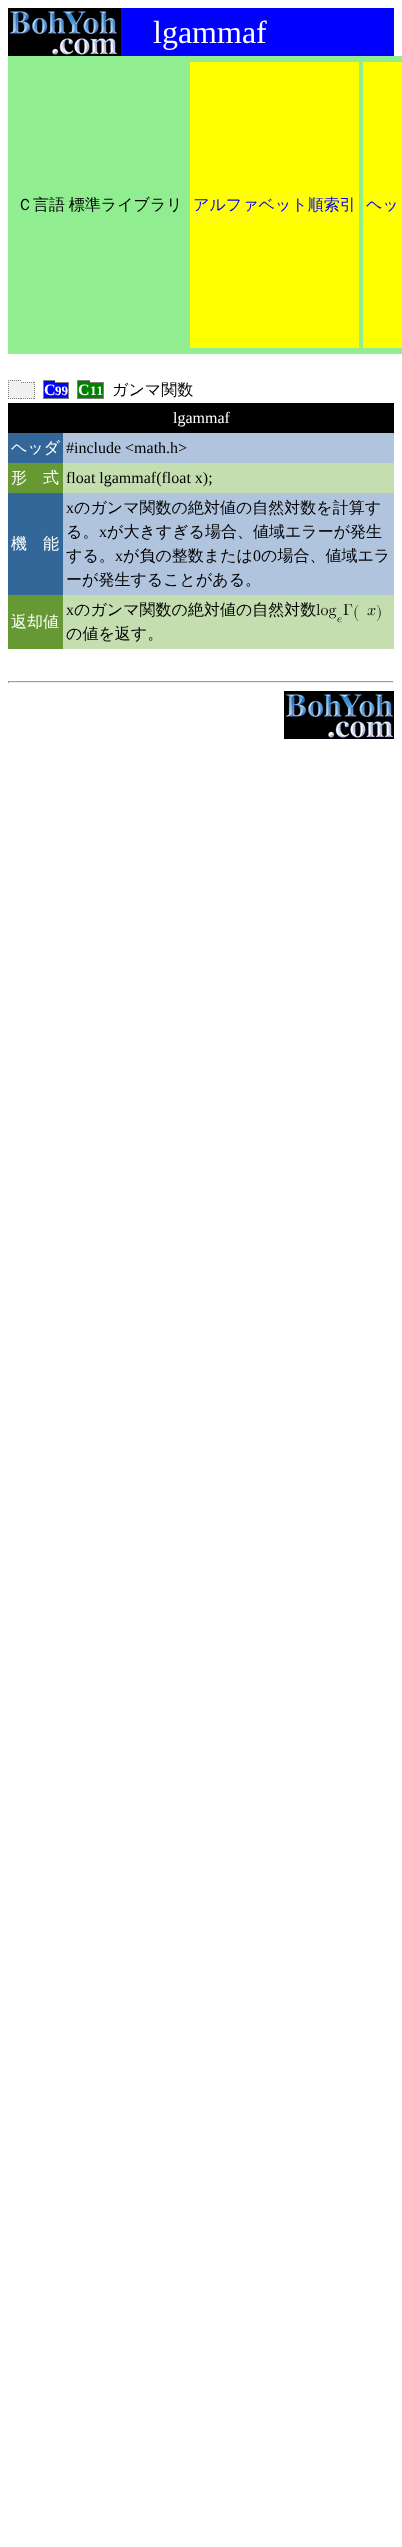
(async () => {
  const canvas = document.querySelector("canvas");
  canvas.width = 402;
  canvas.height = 2547;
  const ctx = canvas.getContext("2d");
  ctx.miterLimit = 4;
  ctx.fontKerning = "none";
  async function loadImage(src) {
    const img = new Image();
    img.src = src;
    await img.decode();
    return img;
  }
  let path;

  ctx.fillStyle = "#ffffff";
  ctx.fillRect(0, 0, 402, 2547);
  ctx.fillStyle = "#000000";
  ctx.fillRect(8, 8, 113, 48);
  ctx.drawImage(await loadImage("img/1.png"), 9, 11, 108, 45);
  for (const [x, y, w, h, color] of [
    [121, 8, 273, 48, "#0000ff"],
    [8, 56, 394, 298, "#90ee90"],
    [190, 62, 169, 286, "#ffff00"],
    [363, 62, 39, 286, "#ffff00"],
    [8, 380, 13, 19, "#f0f0f0"],
  ]) {
    ctx.fillStyle = color;
    ctx.fillRect(x, y, w, h);
  }
  path = new Path2D("M8 380.5H21M8 398.5H21M8.5 380V399");
  ctx.strokeStyle = "#808080";
  ctx.setLineDash([1, 1]);
  ctx.stroke(path);
  ctx.fillRect(21, 382, 14, 17);
  path = new Path2D("M21 382.5H35M34.5 382V399M21 398.5H35");
  ctx.stroke(path);
  for (const [x, y, w, h, color] of [
    [44, 381, 11, 17, "#0000ff"],
    [43, 380, 12, 1, "#808080"],
    [43, 398, 12, 1, "#808080"],
    [43, 380, 1, 19, "#808080"],
    [55, 382, 14, 1, "#808080"],
    [55, 383, 13, 15, "#0000ff"],
    [68, 382, 1, 17, "#808080"],
    [55, 398, 14, 1, "#808080"],
    [78, 381, 12, 17, "#008000"],
    [77, 380, 13, 1, "#808080"],
    [77, 398, 13, 1, "#808080"],
    [77, 380, 1, 19, "#808080"],
    [90, 382, 14, 1, "#808080"],
    [90, 383, 13, 15, "#008000"],
    [103, 382, 1, 17, "#808080"],
    [90, 398, 14, 1, "#808080"],
    [8, 403, 386, 30, "#000000"],
    [8, 433, 55, 30, "#336699"],
    [63, 433, 331, 30, "#b0c4de"],
    [8, 463, 55, 30, "#669933"],
    [63, 463, 331, 30, "#c4deb0"],
    [8, 493, 55, 102, "#336699"],
    [63, 493, 331, 102, "#b0c4de"],
    [8, 595, 55, 54, "#669933"],
    [63, 595, 331, 54, "#c4deb0"],
    [8, 681, 386, 1, "#9f9f9f"],
    [393, 681, 1, 2, "#eeeeee"],
    [8, 682, 386, 1, "#eeeeee"],
    [8, 681, 1, 2, "#9f9f9f"],
  ]) {
    ctx.fillStyle = color;
    ctx.fillRect(x, y, w, h);
  }
  ctx.drawImage(await loadImage("img/2.png"), 284, 691, 110, 48);
  ctx.font = "32px Liberation Serif";
  ctx.fillStyle = "#ffffff";
  ctx.fillText("lgammaf", 153, 43);
  ctx.wordSpacing = "-1px";
  ctx.font = "500 16px WenQuanYi Zen Hei";
  ctx.fillStyle = "#000000";
  ctx.fillText("Ｃ言語 標準ライブラリ", 17, 210);
  ctx.wordSpacing = "0px";
  ctx.fillStyle = "#0000ff";
  ctx.fillText("アルファベット順索引", 193, 210);
  ctx.fillText("ヘッ", 366, 210);
  ctx.font = "bold 16px Liberation Serif";
  ctx.fillStyle = "#ffffff";
  ctx.fillText("C", 44, 395);
  ctx.font = "bold 13px Liberation Serif";
  ctx.fillText("99", 55, 395);
  ctx.font = "bold 16px Liberation Serif";
  ctx.fillText("C", 78, 395);
  ctx.font = "bold 13px Liberation Serif";
  ctx.fillText("11", 90, 395);
  ctx.font = "500 16px WenQuanYi Zen Hei";
  ctx.fillStyle = "#000000";
  ctx.fillText("ガンマ関数", 112, 395);
  ctx.font = "16px Liberation Serif";
  ctx.fillStyle = "#ffffff";
  ctx.fillText("lgammaf", 173, 423);
  ctx.font = "500 16px WenQuanYi Zen Hei";
  ctx.fillText("ヘッダ", 11, 453);
  ctx.font = "16px Liberation Serif";
  ctx.fillStyle = "#000000";
  ctx.fillText("#include <math.h>", 66, 453);
  ctx.font = "500 16px WenQuanYi Zen Hei";
  ctx.fillStyle = "#ffffff";
  ctx.fillText("形　式", 11, 483);
  ctx.font = "16px Liberation Serif";
  ctx.fillStyle = "#000000";
  ctx.fillText("float lgammaf(float x);", 66, 483);
  ctx.font = "500 16px WenQuanYi Zen Hei";
  ctx.fillStyle = "#ffffff";
  ctx.fillText("機　能", 11, 549);
  ctx.font = "16px Liberation Serif";
  ctx.fillStyle = "#000000";
  ctx.fillText("x", 66, 513);
  ctx.font = "500 16px WenQuanYi Zen Hei";
  ctx.fillText("のガンマ関数の絶対値の自然対数を計算す", 74, 513);
  ctx.fillText("る。", 66, 537);
  ctx.font = "16px Liberation Serif";
  ctx.fillText("x", 99, 537);
  ctx.font = "500 16px WenQuanYi Zen Hei";
  ctx.fillText("が大きすぎる場合、値域エラーが発生", 107, 537);
  ctx.fillText("する。", 66, 561);
  ctx.font = "16px Liberation Serif";
  ctx.fillText("x", 115, 561);
  ctx.font = "500 16px WenQuanYi Zen Hei";
  ctx.fillText("が負の整数または", 123, 561);
  ctx.font = "16px Liberation Serif";
  ctx.fillText("0", 253, 561);
  ctx.font = "500 16px WenQuanYi Zen Hei";
  ctx.fillText("の場合、値域エラ", 261, 561);
  ctx.fillText("ーが発生することがある。", 66, 585);
  ctx.fillStyle = "#ffffff";
  ctx.fillText("返却値", 11, 627);
  ctx.font = "16px Liberation Serif";
  ctx.fillStyle = "#000000";
  ctx.fillText("x", 66, 615);
  ctx.font = "500 16px WenQuanYi Zen Hei";
  ctx.fillText("のガンマ関数の絶対値の自然対数", 74, 615);
  ctx.font = "16px Latin Modern Math";
  ctx.fillText("log", 316, 615);
  ctx.font = "11px Latin Modern Math";
  ctx.fillText("𝑒", 337, 622);
  ctx.font = "16px Latin Modern Math";
  for (const [text, x, y] of [
    ["Γ", 343, 615],
    ["(", 353, 617],
    ["𝑥", 367, 615],
    [")", 376, 617],
  ]) {
    ctx.fillText(text, x, y);
  }
  ctx.font = "500 16px WenQuanYi Zen Hei";
  ctx.fillText("の値を返す。", 66, 639);
})();
